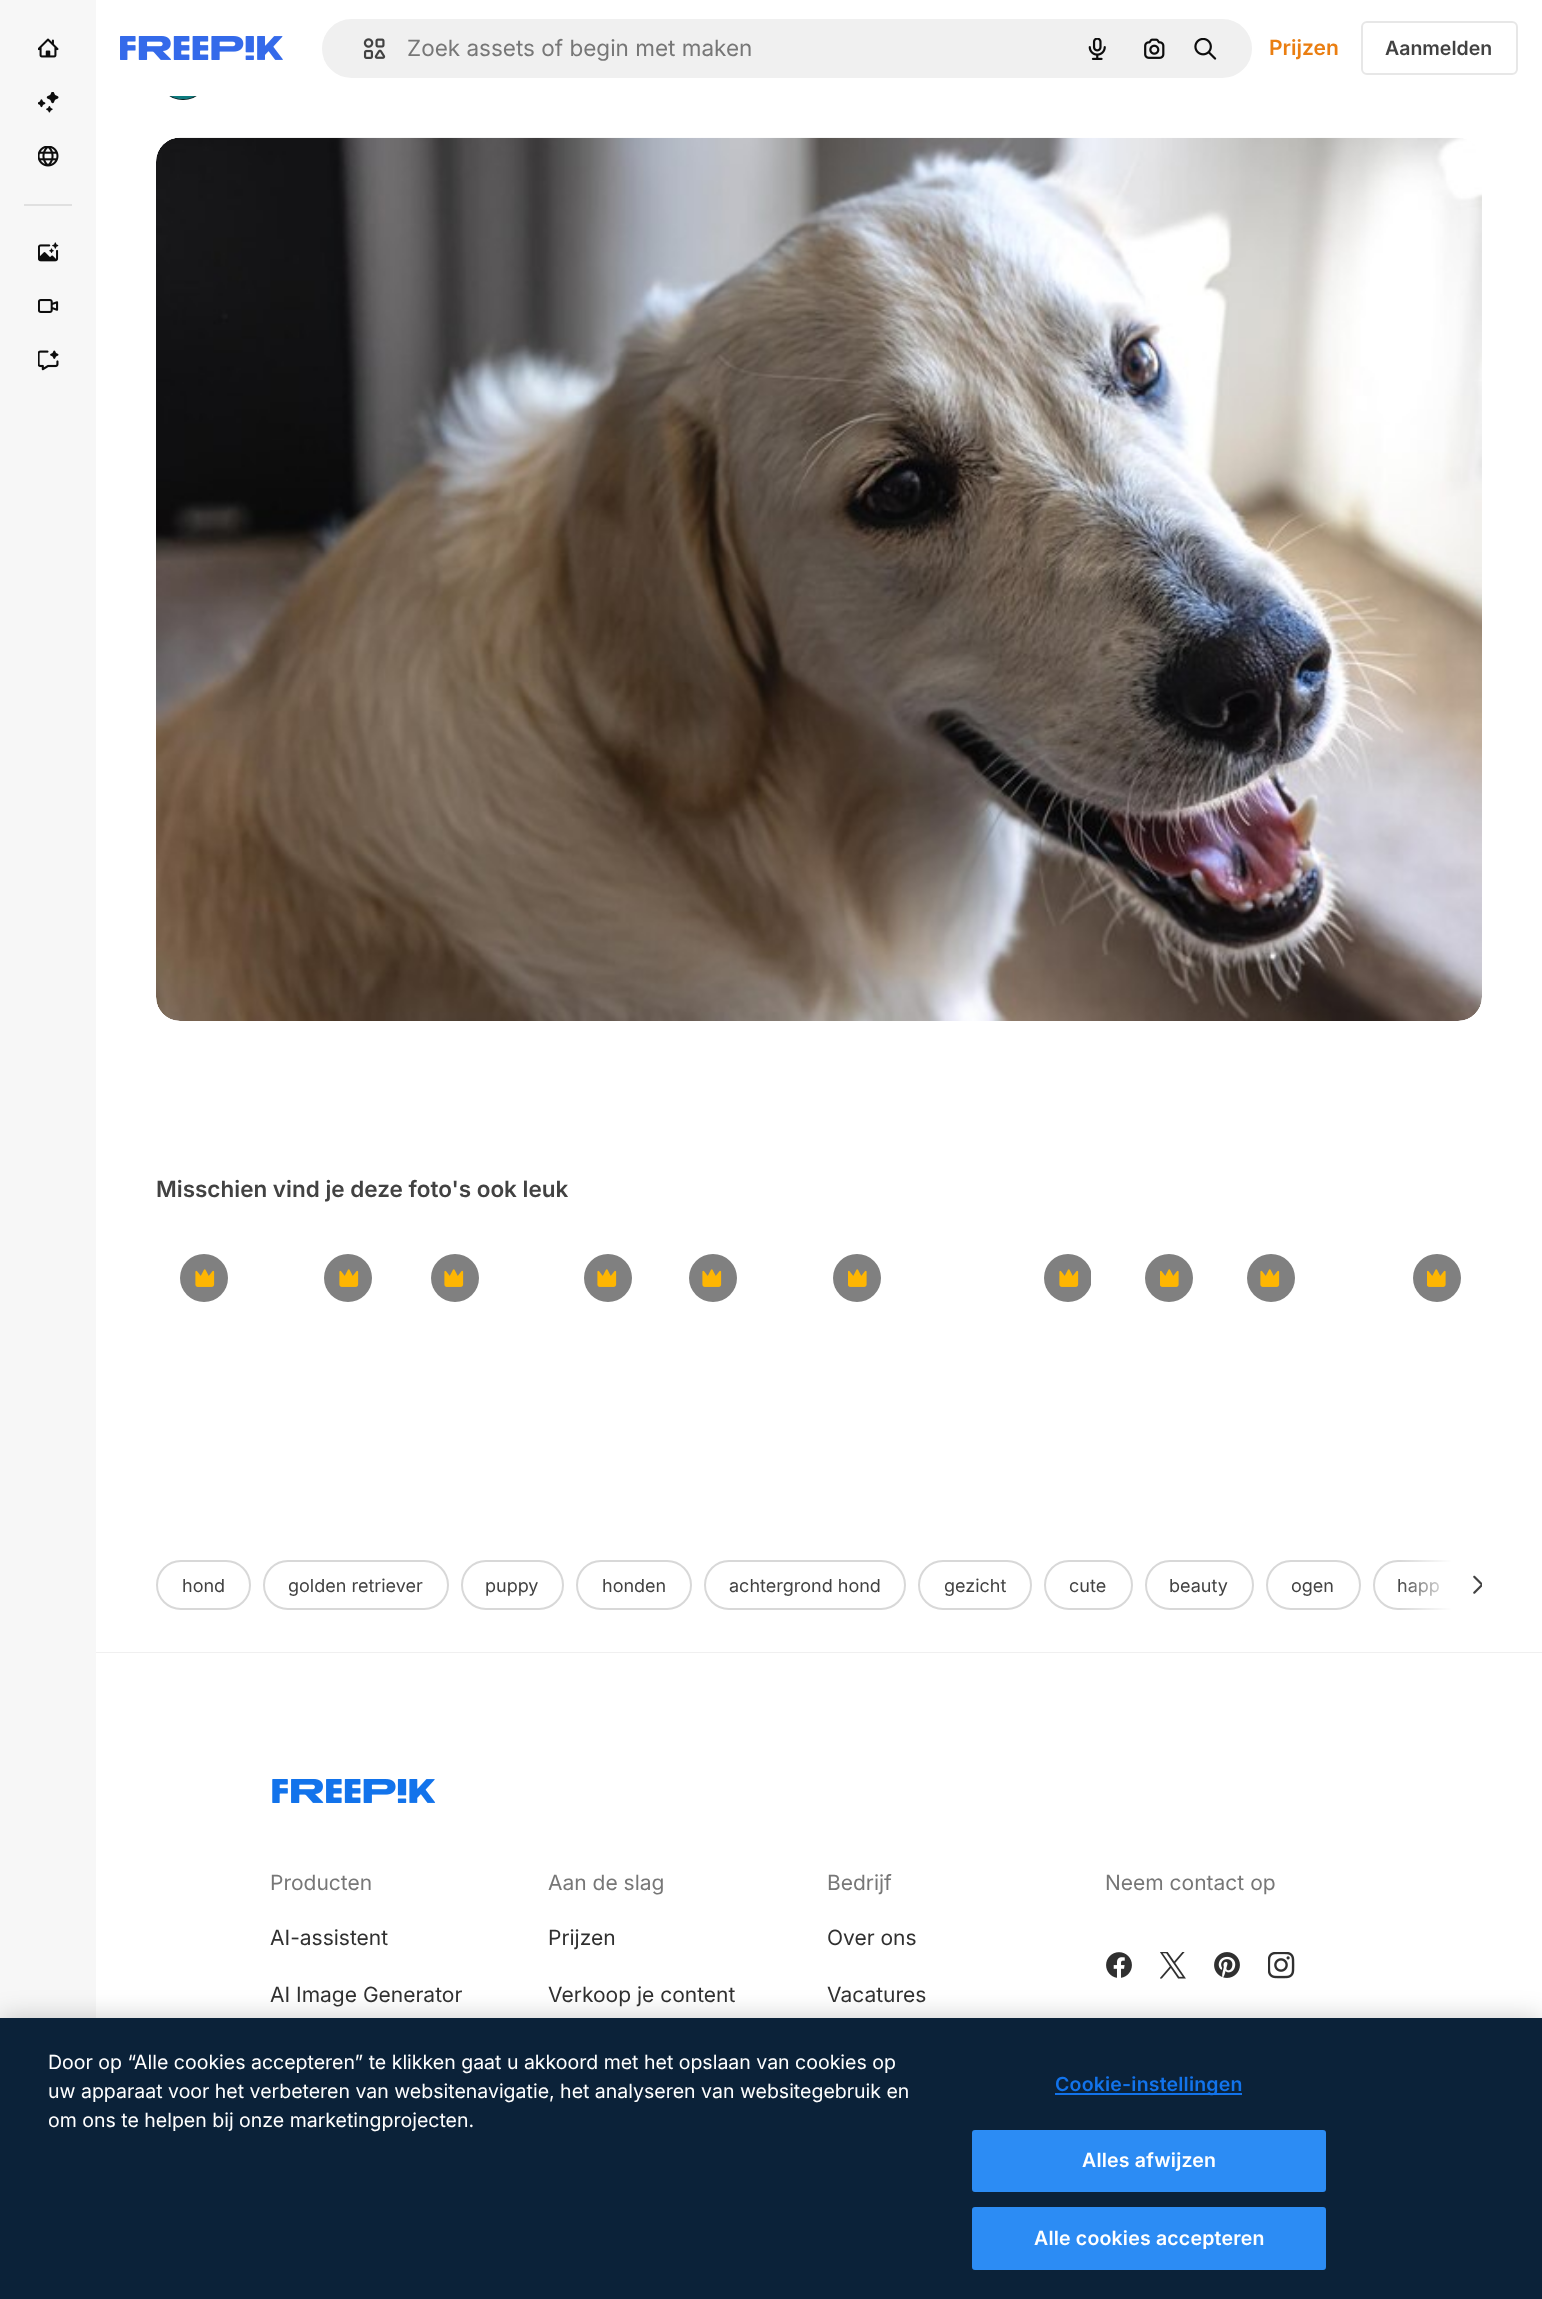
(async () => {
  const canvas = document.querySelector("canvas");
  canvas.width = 1542;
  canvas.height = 2299;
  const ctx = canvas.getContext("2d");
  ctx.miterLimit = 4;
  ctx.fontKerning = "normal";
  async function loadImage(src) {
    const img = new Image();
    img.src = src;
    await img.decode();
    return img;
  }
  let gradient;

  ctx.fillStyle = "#ffffff";
  ctx.fillRect(0, 0, 1542, 2299);
  ctx.fillStyle = "#f7f7f7";
  ctx.fillRect(0, 0, 96, 2018);
  ctx.drawImage(await loadImage("img/1.png"), 38, 38, 21, 20);
  ctx.drawImage(await loadImage("img/2.png"), 38, 92, 21, 21);
  ctx.drawImage(await loadImage("img/3.png"), 38, 146, 21, 21);
  ctx.fillStyle = "#e0e0e0";
  ctx.fillRect(24, 204, 48, 2);
  ctx.drawImage(await loadImage("img/4.png"), 38, 242, 21, 20);
  ctx.drawImage(await loadImage("img/5.png"), 38, 299, 21, 14);
  ctx.drawImage(await loadImage("img/6.png"), 38, 350, 21, 21);
  ctx.drawImage(await loadImage("img/7.png"), 120, 36, 163, 24);
  ctx.fillStyle = "#f0f0f0";
  ctx.beginPath();
  ctx.roundRect(321, 18, 932, 61, 30.5);
  ctx.fill();
  ctx.strokeStyle = "#ffffff";
  ctx.lineWidth = 2;
  ctx.stroke();
  ctx.drawImage(await loadImage("img/8.png"), 363, 38, 23, 21);
  ctx.drawImage(await loadImage("img/9.png"), 1088, 38, 18, 22);
  ctx.drawImage(await loadImage("img/10.png"), 1144, 38, 21, 21);
  ctx.drawImage(await loadImage("img/11.png"), 1194, 38, 23, 22);
  ctx.beginPath();
  ctx.roundRect(1362, 22, 155, 52, 5);
  ctx.strokeStyle = "#e7e7e7";
  ctx.stroke();
  ctx.drawImage(await loadImage("img/12.png"), 169, 96, 28, 4);
  ctx.drawImage(await loadImage("img/13.png"), 156, 137, 1326, 884);
  ctx.fillStyle = "#808080";
  ctx.beginPath();
  ctx.arc(204, 1278, 24, 0, Math.PI * 2);
  ctx.fill();
  ctx.drawImage(await loadImage("img/14.png"), 195, 1269, 20, 18);
  ctx.beginPath();
  ctx.arc(348, 1278, 24, 0, Math.PI * 2);
  ctx.fill();
  ctx.drawImage(await loadImage("img/14.png"), 339, 1269, 20, 18);
  ctx.beginPath();
  ctx.arc(455, 1278, 24, 0, Math.PI * 2);
  ctx.fill();
  ctx.drawImage(await loadImage("img/14.png"), 444, 1269, 20, 18);
  ctx.beginPath();
  ctx.arc(608, 1278, 24, 0, Math.PI * 2);
  ctx.fill();
  ctx.drawImage(await loadImage("img/14.png"), 597, 1269, 20, 18);
  ctx.beginPath();
  ctx.arc(713, 1278, 24, 0, Math.PI * 2);
  ctx.fill();
  ctx.drawImage(await loadImage("img/14.png"), 702, 1269, 20, 18);
  ctx.beginPath();
  ctx.arc(857, 1278, 24, 0, Math.PI * 2);
  ctx.fill();
  ctx.drawImage(await loadImage("img/15.png"), 848, 1269, 19, 18);
  ctx.save();
  ctx.beginPath();
  ctx.roundRect(1020, 1230, 71, 300, 24);
  ctx.clip();
  ctx.beginPath();
  ctx.arc(1068, 1278, 24, 0, Math.PI * 2);
  ctx.fill();
  ctx.restore();
  ctx.drawImage(await loadImage("img/14.png"), 1059, 1269, 20, 18);
  ctx.beginPath();
  ctx.arc(1169, 1278, 24, 0, Math.PI * 2);
  ctx.fill();
  ctx.drawImage(await loadImage("img/15.png"), 1160, 1269, 19, 18);
  ctx.beginPath();
  ctx.arc(1271, 1278, 24, 0, Math.PI * 2);
  ctx.fill();
  ctx.drawImage(await loadImage("img/14.png"), 1260, 1269, 20, 18);
  ctx.beginPath();
  ctx.arc(1437, 1278, 24, 0, Math.PI * 2);
  ctx.fill();
  ctx.drawImage(await loadImage("img/15.png"), 1427, 1269, 19, 18);
  ctx.beginPath();
  ctx.roundRect(157, 1561, 93, 48, 24);
  ctx.strokeStyle = "#d8d8d8";
  ctx.stroke();
  ctx.beginPath();
  ctx.roundRect(264, 1561, 184, 48, 24);
  ctx.stroke();
  ctx.beginPath();
  ctx.roundRect(462, 1561, 101, 48, 24);
  ctx.stroke();
  ctx.beginPath();
  ctx.roundRect(577, 1561, 114, 48, 24);
  ctx.stroke();
  ctx.beginPath();
  ctx.roundRect(705, 1561, 200, 48, 24);
  ctx.stroke();
  ctx.beginPath();
  ctx.roundRect(919, 1561, 112, 48, 24);
  ctx.stroke();
  ctx.beginPath();
  ctx.roundRect(1045, 1561, 87, 48, 24);
  ctx.stroke();
  ctx.beginPath();
  ctx.roundRect(1146, 1561, 107, 48, 24);
  ctx.stroke();
  ctx.beginPath();
  ctx.roundRect(1267, 1561, 93, 48, 24);
  ctx.stroke();
  ctx.beginPath();
  ctx.roundRect(1374, 1561, 101, 48, 24);
  ctx.stroke();
  ctx.fillStyle = "#ffffff";
  ctx.fillRect(1452, 1560, 24, 50);
  ctx.drawImage(await loadImage("img/16.png"), 1473, 1575, 9, 19);
  ctx.fillStyle = "#f0f0f0";
  ctx.fillRect(96, 1652, 1446, 1);
  ctx.drawImage(await loadImage("img/17.png"), 272, 1779, 164, 24);
  ctx.drawImage(await loadImage("img/18.png"), 1106, 1952, 26, 26);
  ctx.drawImage(await loadImage("img/19.png"), 1160, 1952, 26, 27);
  ctx.drawImage(await loadImage("img/20.png"), 1214, 1952, 26, 26);
  ctx.drawImage(await loadImage("img/21.png"), 1268, 1952, 27, 27);
  ctx.fillStyle = "rgba(0, 0, 0, 0.2)";
  ctx.filter = "blur(13.5px)";
  ctx.beginPath();
  ctx.rect(0, 2018, 1542, 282);
  ctx.fill();
  ctx.filter = "none";
  ctx.fillStyle = "#0b2239";
  ctx.fillRect(0, 2018, 1542, 281);
  ctx.fillStyle = "#1273eb";
  ctx.fillRect(1055, 2093, 187, 2);
  ctx.fillStyle = "#2c8cf4";
  ctx.beginPath();
  ctx.roundRect(973, 2131, 352, 60, 2);
  ctx.fill();
  ctx.strokeStyle = "#2c8cf4";
  ctx.stroke();
  ctx.beginPath();
  ctx.roundRect(973, 2208, 352, 61, 2);
  ctx.fill();
  ctx.stroke();
  ctx.font = "22.5px Inter";
  ctx.fillStyle = "#777777";
  ctx.fillText("Zoek assets of begin met maken", 407, 56);
  ctx.font = "600 21px Inter";
  ctx.fillStyle = "#ea7e11";
  ctx.fillText("Prijzen", 1269, 55);
  ctx.font = "600 19.5px Inter";
  ctx.fillStyle = "#424242";
  ctx.fillText("Aanmelden", 1385, 55);
  ctx.font = "600 22.5px Inter";
  ctx.fillText("Misschien vind je deze foto's ook leuk", 156, 1197);
  ctx.font = "18px Inter";
  for (const [text, x, y] of [
    ["hond", 182, 1592],
    ["golden retriever", 288, 1592],
    ["puppy", 485, 1592],
    ["honden", 602, 1592],
    ["achtergrond hond", 729, 1592],
    ["gezicht", 944, 1592],
    ["cute", 1069, 1592],
    ["beauty", 1169, 1592],
    ["ogen", 1291, 1592],
    ["happ", 1397, 1592],
  ]) {
    ctx.fillText(text, x, y);
  }
  gradient = ctx.createLinearGradient(1452, 1585, 1400, 1585);
  gradient.addColorStop(0, "#ffffff");
  gradient.addColorStop(1, "rgba(255, 255, 255, 0)");
  ctx.fillStyle = gradient;
  ctx.fillRect(1401, 1560, 51, 50);
  ctx.font = "21px Inter";
  ctx.fillStyle = "#777777";
  ctx.fillText("Producten", 270, 1890);
  ctx.fillStyle = "#303030";
  ctx.fillText("AI-assistent", 270, 1945);
  ctx.fillText("AI Image Generator", 270, 2002);
  ctx.fillStyle = "#777777";
  ctx.fillText("Aan de slag", 548, 1890);
  ctx.fillStyle = "#303030";
  ctx.fillText("Prijzen", 548, 1945);
  ctx.fillText("Verkoop je content", 548, 2002);
  ctx.fillStyle = "#777777";
  ctx.fillText("Bedrijf", 827, 1890);
  ctx.fillStyle = "#303030";
  ctx.fillText("Over ons", 827, 1945);
  ctx.fillText("Vacatures", 827, 2002);
  ctx.fillStyle = "#777777";
  ctx.fillText("Neem contact op", 1105, 1890);
  ctx.font = "19.5px Inter";
  ctx.fillStyle = "#ffffff";
  for (const [text, x, y] of [
    ["Door op “Alle cookies accepteren” te klikken gaat u akkoord met het opslaan van cookies op", 48, 2069],
    ["uw apparaat voor het verbeteren van websitenavigatie, het analyseren van websitegebruik en", 48, 2098],
    ["om ons te helpen bij onze marketingprojecten.", 48, 2127],
  ]) {
    ctx.fillText(text, x, y);
  }
  ctx.letterSpacing = "0.2px";
  ctx.font = "600 19.5px Inter";
  ctx.fillStyle = "#1273eb";
  ctx.fillText("Cookie-instellingen", 1055, 2091);
  ctx.fillStyle = "#ffffff";
  ctx.fillText("Alles afwijzen", 1082, 2167);
  ctx.fillText("Alle cookies accepteren", 1034, 2245);
})();
